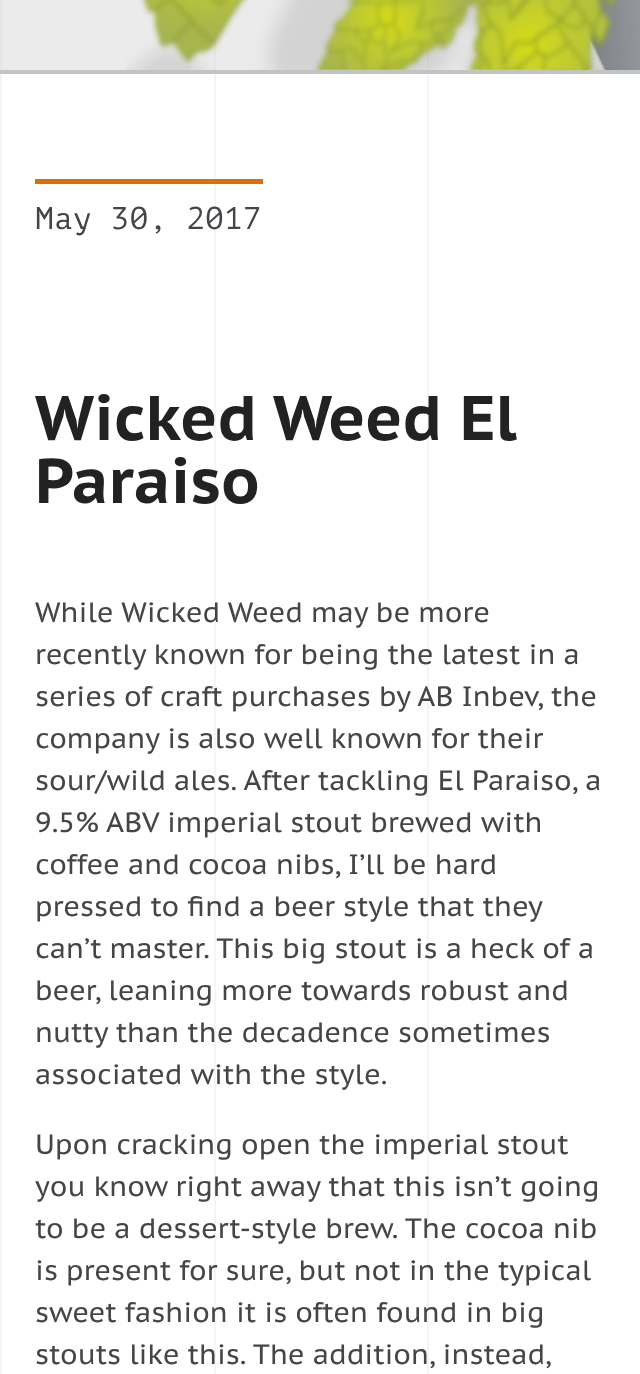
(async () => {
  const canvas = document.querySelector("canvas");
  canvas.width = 640;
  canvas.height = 1374;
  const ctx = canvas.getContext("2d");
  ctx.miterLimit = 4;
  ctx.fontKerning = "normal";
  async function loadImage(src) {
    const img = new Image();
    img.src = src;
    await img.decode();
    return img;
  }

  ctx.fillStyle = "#ffffff";
  ctx.fillRect(0, 0, 640, 1374);
  for (const [x, y, w, h, color] of [
    [2, 0, 604, 70, "#ebebeb"],
    [0, 74, 2, 1300, "#f5f5f5"],
    [0, 0, 2, 74, "#e5e5e5"],
    [214, 74, 2, 1300, "#f5f5f5"],
    [214, 28, 2, 46, "#e5e5e5"],
    [427, 74, 2, 1300, "#f5f5f5"],
    [427, 42, 2, 32, "#e5e5e5"],
  ]) {
    ctx.fillStyle = color;
    ctx.fillRect(x, y, w, h);
  }
  ctx.drawImage(await loadImage("img/1.png"), 125, 0, 515, 70);
  ctx.fillStyle = "#c1c4c5";
  ctx.fillRect(0, 70, 640, 4);
  ctx.drawImage(await loadImage("img/2.png"), 139, 0, 480, 70);
  ctx.fillStyle = "#d97009";
  ctx.fillRect(35, 179, 228, 5);
  ctx.font = "31.5px PT Mono";
  ctx.fillStyle = "#444548";
  ctx.fillText("May 30, 2017", 35, 229);
  ctx.font = "bold 63px PT Sans Caption";
  ctx.fillStyle = "#212224";
  ctx.fillText("Wicked Weed El", 35, 440);
  ctx.fillText("Paraiso", 35, 503);
  ctx.font = "28px PT Sans Caption";
  ctx.fillStyle = "#444548";
  for (const [text, x, y] of [
    ["While Wicked Weed may be more", 35, 622],
    ["recently known for being the latest in a", 35, 664],
    ["series of craft purchases by AB Inbev, the", 35, 706],
    ["company is also well known for their", 35, 748],
    ["sour/wild ales. After tackling El Paraiso, a", 35, 790],
    ["9.5% ABV imperial stout brewed with", 35, 832],
    ["coffee and cocoa nibs, I’ll be hard", 35, 874],
    ["pressed to find a beer style that they", 35, 916],
    ["can’t master. This big stout is a heck of a", 35, 958],
    ["beer, leaning more towards robust and", 35, 1000],
    ["nutty than the decadence sometimes", 35, 1042],
    ["associated with the style.", 35, 1084],
    ["Upon cracking open the imperial stout", 35, 1154],
    ["you know right away that this isn’t going", 35, 1196],
    ["to be a dessert-style brew. The cocoa nib", 35, 1238],
    ["is present for sure, but not in the typical", 35, 1280],
    ["sweet fashion it is often found in big", 35, 1322],
    ["stouts like this. The addition, instead,", 35, 1364],
  ]) {
    ctx.fillText(text, x, y);
  }
})();
